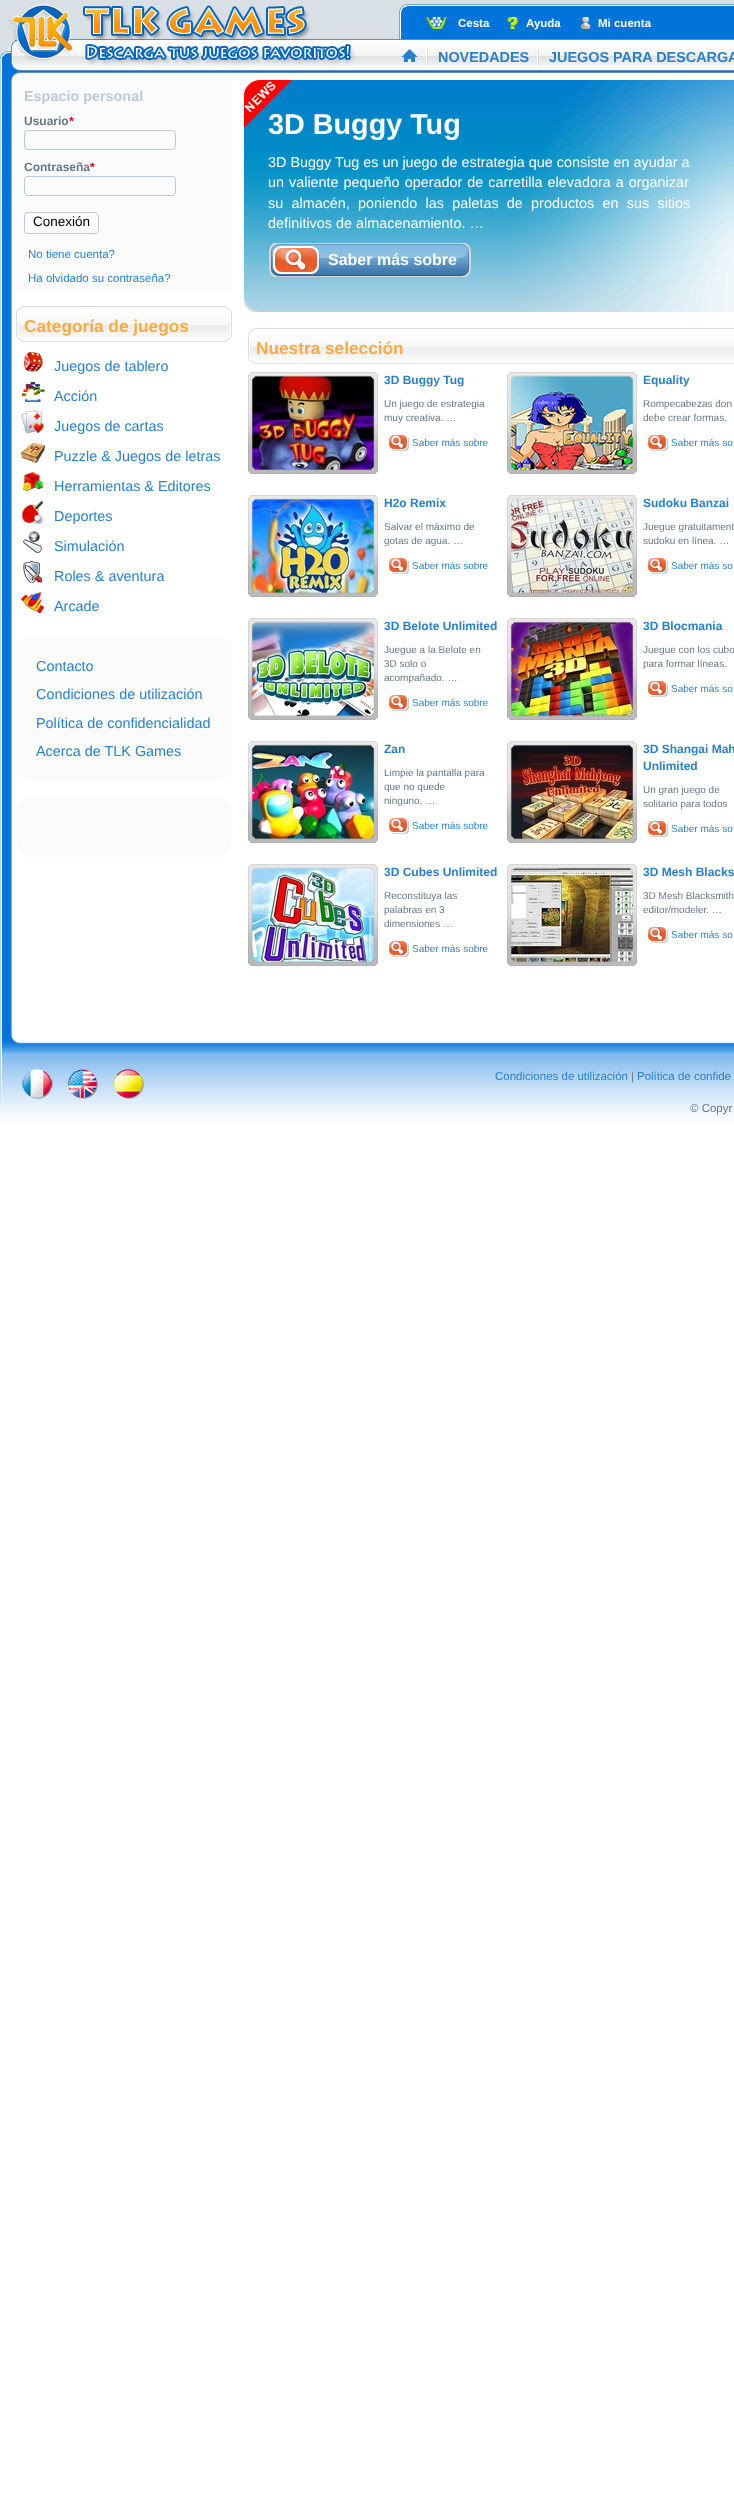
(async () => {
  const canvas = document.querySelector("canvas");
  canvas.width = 734;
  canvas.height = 2517;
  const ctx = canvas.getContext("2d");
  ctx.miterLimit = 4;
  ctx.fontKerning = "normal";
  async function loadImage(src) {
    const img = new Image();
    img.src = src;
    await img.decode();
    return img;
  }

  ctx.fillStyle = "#ffffff";
  ctx.fillRect(0, 0, 734, 2517);
  ctx.drawImage(await loadImage("img/1.png"), 0, 0, 734, 56);
  ctx.drawImage(await loadImage("img/2.png"), 0, 4, 734, 76);
  ctx.drawImage(await loadImage("img/3.png"), 9, 4, 346, 61);
  ctx.drawImage(await loadImage("img/4.png"), 426, 17, 24, 12);
  ctx.drawImage(await loadImage("img/5.png"), 507, 17, 11, 12);
  ctx.drawImage(await loadImage("img/6.png"), 580, 17, 11, 12);
  ctx.drawImage(await loadImage("img/7.png"), 402, 49, 16, 13);
  ctx.drawImage(await loadImage("img/8.png"), 426, 49, 2, 16);
  ctx.drawImage(await loadImage("img/8.png"), 537, 49, 2, 16);
  ctx.drawImage(await loadImage("img/9.png"), 0, 80, 12, 956);
  ctx.fillStyle = "#fbfbfb";
  ctx.fillRect(16, 80, 216, 210);
  ctx.beginPath();
  ctx.roundRect(24.5, 130.5, 151, 19, 3.5);
  ctx.strokeStyle = "#bbcad7";
  ctx.stroke();
  ctx.beginPath();
  ctx.roundRect(24.5, 176.5, 151, 19, 3.5);
  ctx.stroke();
  ctx.beginPath();
  ctx.roundRect(24.5, 212.5, 74, 21, 3.5);
  ctx.stroke();
  ctx.drawImage(await loadImage("img/10.png"), 16, 306, 216, 36);
  ctx.drawImage(await loadImage("img/11.png"), 24, 352, 19, 20);
  ctx.drawImage(await loadImage("img/12.png"), 22, 382, 23, 20);
  ctx.drawImage(await loadImage("img/13.png"), 21, 410, 23, 24);
  ctx.drawImage(await loadImage("img/14.png"), 21, 443, 24, 20);
  ctx.drawImage(await loadImage("img/15.png"), 23, 472, 20, 19);
  ctx.drawImage(await loadImage("img/16.png"), 22, 500, 23, 24);
  ctx.drawImage(await loadImage("img/17.png"), 23, 531, 19, 22);
  ctx.drawImage(await loadImage("img/18.png"), 23, 561, 20, 22);
  ctx.drawImage(await loadImage("img/19.png"), 21, 592, 23, 21);
  ctx.beginPath();
  ctx.roundRect(16, 636, 216, 145, 16);
  ctx.fill();
  ctx.beginPath();
  ctx.roundRect(16, 797, 216, 60, 16);
  ctx.fill();
  ctx.drawImage(await loadImage("img/20.png"), 244, 80, 490, 232);
  ctx.drawImage(await loadImage("img/21.png"), 320, 243, 151, 34);
  ctx.drawImage(await loadImage("img/22.png"), 269, 243, 51, 34);
  ctx.drawImage(await loadImage("img/23.png"), 248, 328, 486, 36);
  ctx.drawImage(await loadImage("img/24.png"), 252, 376, 122, 94);
  ctx.drawImage(await loadImage("img/25.png"), 248, 372, 130, 102);
  ctx.drawImage(await loadImage("img/26.png"), 389, 435, 20, 16);
  ctx.drawImage(await loadImage("img/27.png"), 511, 376, 122, 94);
  ctx.drawImage(await loadImage("img/28.png"), 507, 372, 130, 102);
  ctx.drawImage(await loadImage("img/26.png"), 648, 435, 20, 16);
  ctx.drawImage(await loadImage("img/29.png"), 252, 499, 122, 94);
  ctx.drawImage(await loadImage("img/30.png"), 248, 495, 130, 102);
  ctx.drawImage(await loadImage("img/26.png"), 389, 558, 20, 16);
  ctx.drawImage(await loadImage("img/31.png"), 511, 499, 122, 94);
  ctx.drawImage(await loadImage("img/32.png"), 507, 495, 130, 102);
  ctx.drawImage(await loadImage("img/26.png"), 648, 558, 20, 16);
  ctx.drawImage(await loadImage("img/33.png"), 252, 622, 122, 94);
  ctx.drawImage(await loadImage("img/34.png"), 248, 618, 130, 102);
  ctx.drawImage(await loadImage("img/26.png"), 389, 695, 20, 16);
  ctx.drawImage(await loadImage("img/35.png"), 511, 622, 122, 94);
  ctx.drawImage(await loadImage("img/36.png"), 507, 618, 130, 102);
  ctx.drawImage(await loadImage("img/26.png"), 648, 681, 20, 16);
  ctx.drawImage(await loadImage("img/37.png"), 252, 745, 122, 94);
  ctx.drawImage(await loadImage("img/38.png"), 248, 741, 130, 102);
  ctx.drawImage(await loadImage("img/26.png"), 389, 818, 20, 16);
  ctx.drawImage(await loadImage("img/39.png"), 511, 745, 122, 94);
  ctx.drawImage(await loadImage("img/40.png"), 507, 741, 130, 102);
  ctx.drawImage(await loadImage("img/26.png"), 648, 821, 20, 16);
  ctx.drawImage(await loadImage("img/41.png"), 252, 868, 122, 94);
  ctx.drawImage(await loadImage("img/42.png"), 248, 864, 130, 102);
  ctx.drawImage(await loadImage("img/26.png"), 389, 941, 20, 16);
  ctx.drawImage(await loadImage("img/43.png"), 511, 868, 122, 94);
  ctx.drawImage(await loadImage("img/44.png"), 507, 864, 130, 102);
  ctx.drawImage(await loadImage("img/26.png"), 648, 927, 20, 16);
  ctx.drawImage(await loadImage("img/45.png"), 0, 1036, 734, 86);
  ctx.drawImage(await loadImage("img/46.png"), 22, 1069, 31, 30);
  ctx.drawImage(await loadImage("img/47.png"), 68, 1069, 30, 30);
  ctx.drawImage(await loadImage("img/48.png"), 114, 1069, 30, 30);
  ctx.font = "bold 11.5px Liberation Sans";
  ctx.fillStyle = "#ffffff";
  for (const [text, x, y] of [
    ["Cesta", 458, 27],
    ["Ayuda", 526, 27],
    ["Mi cuenta", 598, 27],
  ]) {
    ctx.fillText(text, x, y);
  }
  ctx.font = "bold 14.4px Liberation Sans";
  ctx.fillStyle = "#2a7fca";
  ctx.fillText("NOVEDADES", 438, 62);
  ctx.fillText("JUEGOS PARA DESCARGA", 549, 62);
  ctx.fillStyle = "#bbcad7";
  ctx.fillText("Espacio personal", 24, 101);
  ctx.font = "bold 12px Liberation Sans";
  ctx.fillStyle = "#667788";
  ctx.fillText("Usuario", 24, 125);
  ctx.fillStyle = "#ff0000";
  ctx.fillText("*", 69, 125);
  ctx.fillStyle = "#667788";
  ctx.fillText("Contraseña", 24, 171);
  ctx.fillStyle = "#ff0000";
  ctx.fillText("*", 90, 171);
  ctx.font = "13.5px Liberation Sans";
  ctx.fillStyle = "#000000";
  ctx.fillText("Conexión", 33, 226);
  ctx.font = "11.5px Liberation Sans";
  ctx.fillStyle = "#2a7fca";
  ctx.fillText("No tiene cuenta?", 28, 258);
  ctx.fillText("Ha olvidado su contraseña?", 28, 282);
  ctx.font = "bold 17.25px Liberation Sans";
  ctx.fillStyle = "#ffab42";
  ctx.fillText("Categoría de juegos", 24, 332);
  ctx.font = "14.4px Liberation Sans";
  ctx.fillStyle = "#2a7fca";
  for (const [text, x, y] of [
    ["Juegos de tablero", 54, 371],
    ["Acción", 54, 401],
    ["Juegos de cartas", 54, 431],
    ["Puzzle & Juegos de letras", 54, 461],
    ["Herramientas & Editores", 54, 491],
    ["Deportes", 54, 521],
    ["Simulación", 54, 551],
    ["Roles & aventura", 54, 581],
    ["Arcade", 54, 611],
    ["Contacto", 36, 671],
    ["Condiciones de utilización", 36, 699],
    ["Política de confidencialidad", 36, 728],
    ["Acerca de TLK Games", 36, 756],
  ]) {
    ctx.fillText(text, x, y);
  }
  ctx.font = "bold 28.75px Liberation Sans";
  ctx.fillStyle = "#ffffff";
  ctx.fillText("3D Buggy Tug", 268, 134);
  ctx.font = "14.4px Liberation Sans";
  ctx.fillText("3D Buggy Tug es un juego de estrategia que consiste en ayudar a", 268, 167);
  ctx.wordSpacing = "1px";
  ctx.fillText("un valiente pequeño operador de carretilla elevadora a organizar", 268, 187);
  ctx.wordSpacing = "4.25px";
  ctx.fillText("su almacén, poniendo las paletas de productos en sus sitios", 268, 208);
  ctx.wordSpacing = "0px";
  ctx.fillText("definitivos de almacenamiento. …", 268, 228);
  ctx.font = "bold 16px Liberation Sans";
  ctx.fillText("Saber más sobre", 328, 265);
  ctx.font = "bold 17.25px Liberation Sans";
  ctx.fillStyle = "#ffab42";
  ctx.fillText("Nuestra selección", 256, 354);
  ctx.font = "bold 12px Liberation Sans";
  ctx.fillStyle = "#2a7fca";
  ctx.fillText("3D Buggy Tug", 384, 384);
  ctx.font = "10px Liberation Sans";
  ctx.fillStyle = "#667788";
  ctx.fillText("Un juego de estrategia", 384, 407);
  ctx.fillText("muy creativa. …", 384, 421);
  ctx.fillStyle = "#2a7fca";
  ctx.fillText("Saber más sobre", 412, 446);
  ctx.font = "bold 12px Liberation Sans";
  ctx.fillText("Equality", 643, 384);
  ctx.font = "10px Liberation Sans";
  ctx.fillStyle = "#667788";
  ctx.fillText("Rompecabezas don", 643, 407);
  ctx.fillText("debe crear formas.", 643, 421);
  ctx.fillStyle = "#2a7fca";
  ctx.fillText("Saber más so", 671, 446);
  ctx.font = "bold 12px Liberation Sans";
  ctx.fillText("H2o Remix", 384, 507);
  ctx.font = "10px Liberation Sans";
  ctx.fillStyle = "#667788";
  ctx.fillText("Salvar el máximo de", 384, 530);
  ctx.fillText("gotas de agua. …", 384, 544);
  ctx.fillStyle = "#2a7fca";
  ctx.fillText("Saber más sobre", 412, 569);
  ctx.font = "bold 12px Liberation Sans";
  ctx.fillText("Sudoku Banzai", 643, 507);
  ctx.font = "10px Liberation Sans";
  ctx.fillStyle = "#667788";
  ctx.fillText("Juegue gratuitament", 643, 530);
  ctx.fillText("sudoku en línea. …", 643, 544);
  ctx.fillStyle = "#2a7fca";
  ctx.fillText("Saber más so", 671, 569);
  ctx.font = "bold 12px Liberation Sans";
  ctx.fillText("3D Belote Unlimited", 384, 630);
  ctx.font = "10px Liberation Sans";
  ctx.fillStyle = "#667788";
  for (const [text, x, y] of [
    ["Juegue a la Belote en", 384, 653],
    ["3D solo o", 384, 667],
    ["acompañado. …", 384, 681],
  ]) {
    ctx.fillText(text, x, y);
  }
  ctx.fillStyle = "#2a7fca";
  ctx.fillText("Saber más sobre", 412, 706);
  ctx.font = "bold 12px Liberation Sans";
  ctx.fillText("3D Blocmania", 643, 630);
  ctx.font = "10px Liberation Sans";
  ctx.fillStyle = "#667788";
  ctx.fillText("Juegue con los cubo", 643, 653);
  ctx.fillText("para formar líneas.", 643, 667);
  ctx.fillStyle = "#2a7fca";
  ctx.fillText("Saber más so", 671, 692);
  ctx.font = "bold 12px Liberation Sans";
  ctx.fillText("Zan", 384, 753);
  ctx.font = "10px Liberation Sans";
  ctx.fillStyle = "#667788";
  for (const [text, x, y] of [
    ["Limpie la pantalla para", 384, 776],
    ["que no quede", 384, 790],
    ["ninguno. …", 384, 804],
  ]) {
    ctx.fillText(text, x, y);
  }
  ctx.fillStyle = "#2a7fca";
  ctx.fillText("Saber más sobre", 412, 829);
  ctx.font = "bold 12px Liberation Sans";
  ctx.fillText("3D Shangai Mah", 643, 753);
  ctx.fillText("Unlimited", 643, 770);
  ctx.font = "10px Liberation Sans";
  ctx.fillStyle = "#667788";
  ctx.fillText("Un gran juego de", 643, 793);
  ctx.fillText("solitario para todos", 643, 807);
  ctx.fillStyle = "#2a7fca";
  ctx.fillText("Saber más so", 671, 832);
  ctx.font = "bold 12px Liberation Sans";
  ctx.fillText("3D Cubes Unlimited", 384, 876);
  ctx.font = "10px Liberation Sans";
  ctx.fillStyle = "#667788";
  for (const [text, x, y] of [
    ["Reconstituya las", 384, 899],
    ["palabras en 3", 384, 913],
    ["dimensiones …", 384, 927],
  ]) {
    ctx.fillText(text, x, y);
  }
  ctx.fillStyle = "#2a7fca";
  ctx.fillText("Saber más sobre", 412, 952);
  ctx.font = "bold 12px Liberation Sans";
  ctx.fillText("3D Mesh Blacks", 643, 876);
  ctx.font = "10px Liberation Sans";
  ctx.fillStyle = "#667788";
  ctx.fillText("3D Mesh Blacksmith", 643, 899);
  ctx.fillText("editor/modeler. …", 643, 913);
  ctx.fillStyle = "#2a7fca";
  ctx.fillText("Saber más so", 671, 938);
  ctx.font = "11.5px Liberation Sans";
  ctx.fillText("Condiciones de utilización", 495, 1080);
  ctx.fillStyle = "#667788";
  ctx.fillText("|", 631, 1080);
  ctx.fillStyle = "#2a7fca";
  ctx.fillText("Política de confide", 637, 1080);
  ctx.fillStyle = "#667788";
  ctx.fillText("© Copyr", 690, 1112);
})();
